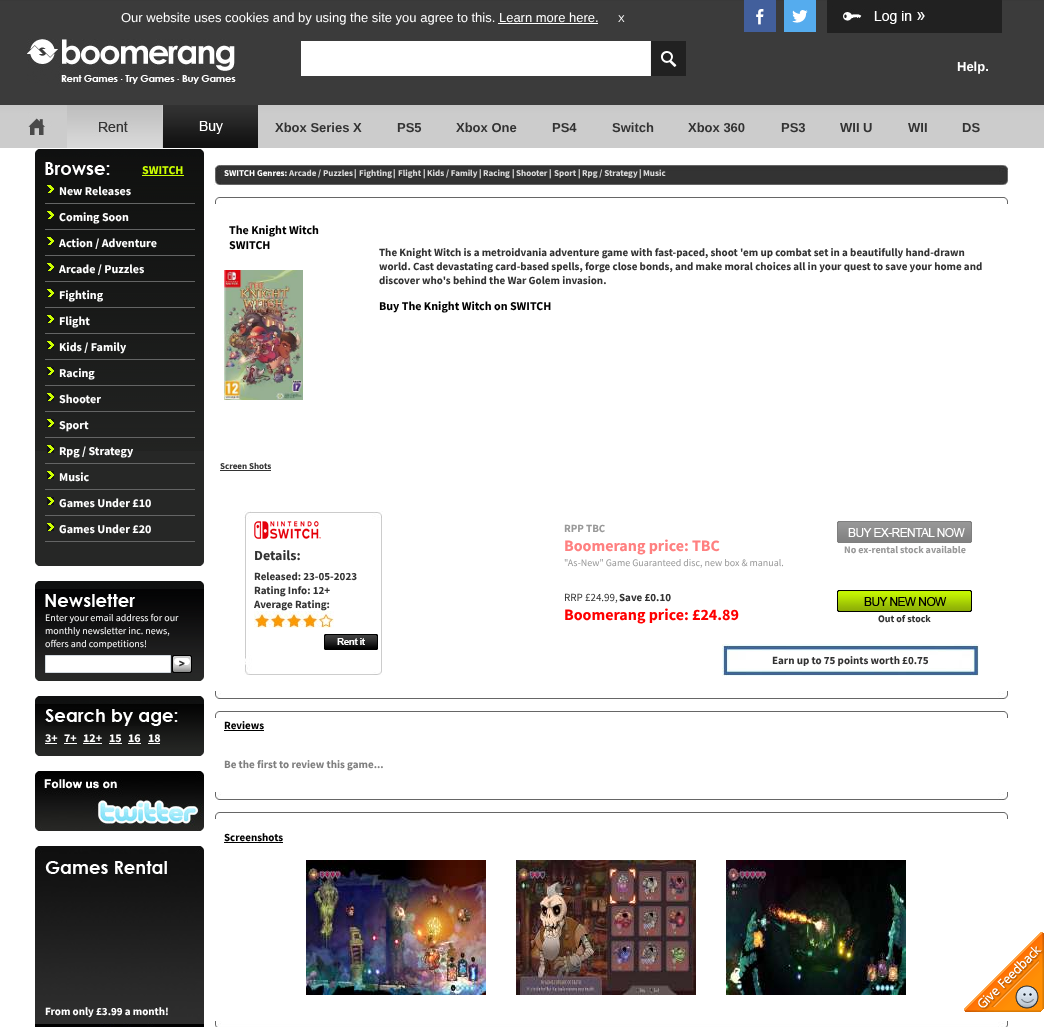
(async () => {
  const canvas = document.querySelector("canvas");
  canvas.width = 1044;
  canvas.height = 1027;
  const ctx = canvas.getContext("2d");
  ctx.miterLimit = 4;
  ctx.fontKerning = "normal";
  async function loadImage(src) {
    const img = new Image();
    img.src = src;
    await img.decode();
    return img;
  }

  ctx.fillStyle = "#ffffff";
  ctx.fillRect(0, 0, 1044, 1027);
  ctx.drawImage(await loadImage("img/1.png"), 0, 0, 1044, 148);
  ctx.fillRect(498, 23, 100, 1);
  ctx.drawImage(await loadImage("img/2.png"), 744, 0, 72, 32);
  ctx.drawImage(await loadImage("img/3.png"), 827, 0, 175, 33);
  ctx.drawImage(await loadImage("img/4.png"), 27, 39, 209, 46);
  ctx.drawImage(await loadImage("img/5.png"), 301, 41, 385, 35);
  ctx.drawImage(await loadImage("img/6.png"), 28, 105, 230, 43);
  ctx.drawImage(await loadImage("img/7.png"), 35, 149, 169, 8);
  ctx.fillStyle = "#262726";
  ctx.fillRect(35, 451, 169, 109);
  ctx.drawImage(await loadImage("img/8.png"), 35, 157, 169, 294);
  ctx.drawImage(await loadImage("img/9.png"), 45, 162, 65, 13);
  ctx.fillStyle = "#ccff00";
  ctx.fillRect(142, 175, 42, 1);
  ctx.fillStyle = "#646565";
  ctx.fillRect(45, 203, 150, 1);
  ctx.drawImage(await loadImage("img/10.png"), 47, 185, 7, 8);
  ctx.fillRect(45, 229, 150, 1);
  ctx.drawImage(await loadImage("img/10.png"), 47, 211, 7, 8);
  ctx.fillRect(45, 255, 150, 1);
  ctx.drawImage(await loadImage("img/10.png"), 47, 237, 7, 8);
  ctx.fillRect(45, 281, 150, 1);
  ctx.drawImage(await loadImage("img/10.png"), 47, 263, 7, 8);
  ctx.fillRect(45, 307, 150, 1);
  ctx.drawImage(await loadImage("img/10.png"), 47, 289, 7, 8);
  ctx.fillRect(45, 333, 150, 1);
  ctx.drawImage(await loadImage("img/10.png"), 47, 315, 7, 8);
  ctx.fillRect(45, 359, 150, 1);
  ctx.drawImage(await loadImage("img/10.png"), 47, 341, 7, 8);
  ctx.fillRect(45, 385, 150, 1);
  ctx.drawImage(await loadImage("img/10.png"), 47, 367, 7, 8);
  ctx.fillRect(45, 411, 150, 1);
  ctx.drawImage(await loadImage("img/10.png"), 47, 393, 7, 8);
  ctx.fillRect(45, 437, 150, 1);
  ctx.drawImage(await loadImage("img/10.png"), 47, 419, 7, 8);
  ctx.fillRect(45, 463, 150, 1);
  ctx.drawImage(await loadImage("img/10.png"), 47, 445, 7, 8);
  ctx.fillRect(45, 489, 150, 1);
  ctx.drawImage(await loadImage("img/10.png"), 47, 471, 7, 8);
  ctx.fillRect(45, 515, 150, 1);
  ctx.drawImage(await loadImage("img/10.png"), 47, 497, 7, 8);
  ctx.fillRect(45, 541, 150, 1);
  ctx.drawImage(await loadImage("img/10.png"), 47, 523, 7, 8);
  ctx.drawImage(await loadImage("img/11.png"), 35, 560, 169, 6);
  ctx.drawImage(await loadImage("img/7.png"), 35, 581, 169, 8);
  ctx.drawImage(await loadImage("img/12.png"), 35, 589, 169, 86);
  ctx.drawImage(await loadImage("img/13.png"), 45, 594, 90, 13);
  ctx.fillStyle = "#ffffff";
  ctx.beginPath();
  ctx.rect(45.5, 655.5, 125, 17);
  ctx.fill();
  ctx.strokeStyle = "#d3dae0";
  ctx.stroke();
  ctx.drawImage(await loadImage("img/14.png"), 172, 655, 20, 18);
  ctx.drawImage(await loadImage("img/11.png"), 35, 675, 169, 6);
  ctx.drawImage(await loadImage("img/7.png"), 35, 696, 169, 8);
  ctx.drawImage(await loadImage("img/15.png"), 35, 704, 169, 46);
  ctx.drawImage(await loadImage("img/16.png"), 45, 709, 133, 17);
  for (const [x, y, w, h, color] of [
    [45, 743, 12, 1, "#ffffff"],
    [64, 743, 13, 1, "#ffffff"],
    [83, 743, 19, 1, "#ffffff"],
    [109, 743, 13, 1, "#ffffff"],
    [128, 743, 13, 1, "#ffffff"],
    [148, 743, 12, 1, "#ffffff"],
  ]) {
    ctx.fillStyle = color;
    ctx.fillRect(x, y, w, h);
  }
  ctx.drawImage(await loadImage("img/11.png"), 35, 750, 169, 6);
  ctx.drawImage(await loadImage("img/17.png"), 35, 771, 169, 60);
  ctx.drawImage(await loadImage("img/18.png"), 35, 846, 169, 181);
  ctx.drawImage(await loadImage("img/19.png"), 45, 861, 122, 13);
  ctx.drawImage(await loadImage("img/20.png"), 214, 164, 795, 21);
  ctx.drawImage(await loadImage("img/21.png"), 215, 197, 793, 7);
  ctx.drawImage(await loadImage("img/22.png"), 224, 270, 79, 130);
  ctx.fillStyle = "#333333";
  ctx.fillRect(220, 470, 51, 1);
  ctx.drawImage(await loadImage("img/23.png"), 244, 511, 139, 164);
  ctx.drawImage(await loadImage("img/24.png"), 254, 521, 67, 18);
  ctx.drawImage(await loadImage("img/25.png"), 254, 611, 16, 17);
  ctx.drawImage(await loadImage("img/25.png"), 270, 611, 16, 17);
  ctx.drawImage(await loadImage("img/25.png"), 286, 611, 16, 17);
  ctx.drawImage(await loadImage("img/25.png"), 302, 611, 16, 17);
  ctx.drawImage(await loadImage("img/26.png"), 318, 611, 16, 17);
  ctx.drawImage(await loadImage("img/27.png"), 324, 634, 54, 16);
  ctx.drawImage(await loadImage("img/28.png"), 837, 521, 135, 22);
  ctx.drawImage(await loadImage("img/29.png"), 837, 590, 135, 22);
  ctx.drawImage(await loadImage("img/30.png"), 722, 644, 257, 32);
  ctx.drawImage(await loadImage("img/31.png"), 215, 691, 793, 8);
  ctx.drawImage(await loadImage("img/21.png"), 215, 711, 793, 7);
  ctx.fillStyle = "#000000";
  ctx.fillRect(224, 730, 40, 1);
  ctx.drawImage(await loadImage("img/31.png"), 215, 792, 793, 8);
  ctx.drawImage(await loadImage("img/21.png"), 215, 812, 793, 7);
  ctx.fillRect(224, 842, 59, 1);
  ctx.drawImage(await loadImage("img/32.png"), 306, 860, 180, 135);
  ctx.drawImage(await loadImage("img/33.png"), 516, 860, 180, 135);
  ctx.drawImage(await loadImage("img/34.png"), 726, 860, 180, 135);
  ctx.drawImage(await loadImage("img/35.png"), 215, 1021, 793, 6);
  ctx.drawImage(await loadImage("img/36.png"), 964, 932, 80, 80);
  ctx.font = "13px Liberation Sans";
  ctx.fillStyle = "#ffffff";
  ctx.fillText("Our website uses cookies and by using the site you agree to this. Learn more here.", 121, 22);
  ctx.font = "10px Liberation Sans";
  ctx.fillText("X", 618, 22);
  ctx.font = "bold 13px Liberation Sans";
  ctx.fillText("Help.", 957, 71);
  ctx.fillStyle = "#333333";
  for (const [text, x, y] of [
    ["Xbox Series X", 275, 132],
    ["PS5", 397, 132],
    ["Xbox One", 456, 132],
    ["PS4", 552, 132],
    ["Switch", 612, 132],
    ["Xbox 360", 688, 132],
    ["PS3", 781, 132],
    ["WII U", 840, 132],
    ["WII", 908, 132],
    ["DS", 962, 132],
  ]) {
    ctx.fillText(text, x, y);
  }
  ctx.font = "bold 12px Source Sans Pro";
  ctx.fillStyle = "#ccff00";
  ctx.fillText("SWITCH", 142, 174);
  ctx.fillStyle = "#ffffff";
  for (const [text, x, y] of [
    ["New Releases", 59, 195],
    ["Coming Soon", 59, 221],
    ["Action / Adventure", 59, 247],
    ["Arcade / Puzzles", 59, 273],
    ["Fighting", 59, 299],
    ["Flight", 59, 325],
    ["Kids / Family", 59, 351],
    ["Racing", 59, 377],
    ["Shooter", 59, 403],
    ["Sport", 59, 429],
    ["Rpg / Strategy", 59, 455],
    ["Music", 59, 481],
    ["Games Under £10", 59, 507],
    ["Games Under £20", 59, 533],
  ]) {
    ctx.fillText(text, x, y);
  }
  ctx.font = "10px Source Sans Pro";
  for (const [text, x, y] of [
    ["Enter your email address for our", 45, 621],
    ["monthly newsletter inc. news,", 45, 634],
    ["offers and competitions!", 45, 647],
  ]) {
    ctx.fillText(text, x, y);
  }
  ctx.font = "bold 12px Source Sans Pro";
  for (const [text, x, y] of [
    ["3+", 45, 742],
    ["7+", 64, 742],
    ["12+", 83, 742],
    ["15", 109, 742],
    ["16", 128, 742],
    ["18", 148, 742],
  ]) {
    ctx.fillText(text, x, y);
  }
  ctx.font = "bold 11px Source Sans Pro";
  ctx.fillText("From only £3.99 a month!", 45, 1015);
  ctx.font = "bold 9px Source Sans Pro";
  ctx.fillText("SWITCH Genres:", 224, 176);
  ctx.fillStyle = "#dddddd";
  ctx.fillText("Arcade / Puzzles", 289, 176);
  ctx.fillStyle = "#ffffff";
  ctx.fillText("|", 354, 176);
  ctx.fillStyle = "#dddddd";
  ctx.fillText("Fighting", 359, 176);
  ctx.fillStyle = "#ffffff";
  ctx.fillText("|", 393, 176);
  ctx.fillStyle = "#dddddd";
  ctx.fillText("Flight", 398, 176);
  ctx.fillStyle = "#ffffff";
  ctx.fillText("|", 423, 176);
  ctx.fillStyle = "#dddddd";
  ctx.fillText("Kids / Family", 427, 176);
  ctx.fillStyle = "#ffffff";
  ctx.fillText("|", 479, 176);
  ctx.fillStyle = "#dddddd";
  ctx.fillText("Racing", 483, 176);
  ctx.fillStyle = "#ffffff";
  ctx.fillText("|", 512, 176);
  ctx.fillStyle = "#dddddd";
  ctx.fillText("Shooter", 516, 176);
  ctx.fillStyle = "#ffffff";
  ctx.fillText("|", 549, 176);
  ctx.fillStyle = "#dddddd";
  ctx.fillText("Sport", 554, 176);
  ctx.fillStyle = "#ffffff";
  ctx.fillText("|", 578, 176);
  ctx.fillStyle = "#dddddd";
  ctx.fillText("Rpg / Strategy", 582, 176);
  ctx.fillStyle = "#ffffff";
  ctx.fillText("|", 639, 176);
  ctx.fillStyle = "#dddddd";
  ctx.fillText("Music", 643, 176);
  ctx.font = "bold 12px Source Sans Pro";
  ctx.fillStyle = "#000000";
  ctx.fillText("The Knight Witch", 229, 234);
  ctx.fillText("SWITCH", 229, 249);
  ctx.font = "bold 9px Source Sans Pro";
  ctx.fillStyle = "#333333";
  ctx.fillText("Screen Shots", 220, 469);
  ctx.font = "bold 11px Source Sans Pro";
  for (const [text, x, y] of [
    ["The Knight Witch is a metroidvania adventure game with fast-paced, shoot 'em up combat set in a beautifully hand-drawn", 379, 256],
    ["world. Cast devastating card-based spells, forge close bonds, and make moral choices all in your quest to save your home and", 379, 270],
    ["discover who's behind the War Golem invasion.", 379, 284],
  ]) {
    ctx.fillText(text, x, y);
  }
  ctx.font = "bold 12px Source Sans Pro";
  ctx.fillStyle = "#000000";
  ctx.fillText("Buy The Knight Witch on SWITCH", 379, 310);
  ctx.font = "bold 14px Source Sans Pro";
  ctx.fillStyle = "#333333";
  ctx.fillText("Details:", 254, 560);
  ctx.font = "bold 11px Source Sans Pro";
  for (const [text, x, y] of [
    ["Released: 23-05-2023", 254, 580],
    ["Rating Info: 12+", 254, 594],
    ["Average Rating:", 254, 608],
  ]) {
    ctx.fillText(text, x, y);
  }
  ctx.fillStyle = "#999999";
  ctx.fillText("RPP TBC", 564, 532);
  ctx.font = "bold 16px Source Sans Pro";
  ctx.fillStyle = "#ff8080";
  ctx.fillText("Boomerang price: TBC", 564, 551);
  ctx.font = "bold 10px Source Sans Pro";
  ctx.fillStyle = "#999999";
  ctx.fillText("No ex-rental stock available", 844, 553);
  ctx.font = "10px Source Sans Pro";
  ctx.fillText("\"As-New\" Game Guaranteed disc, new box & manual.", 564, 566);
  ctx.font = "11px Source Sans Pro";
  ctx.fillStyle = "#333333";
  ctx.fillText("RRP £24.99,", 564, 601);
  ctx.font = "bold 11px Source Sans Pro";
  ctx.fillText("Save £0.10", 619, 601);
  ctx.font = "bold 16px Source Sans Pro";
  ctx.fillStyle = "#ff0000";
  ctx.fillText("Boomerang price: £24.89", 564, 620);
  ctx.font = "bold 10px Source Sans Pro";
  ctx.fillStyle = "#333333";
  ctx.fillText("Out of stock", 878, 622);
  ctx.font = "bold 11px Source Sans Pro";
  ctx.fillText("Earn up to 75 points worth £0.75", 772, 664);
  ctx.fillStyle = "#000000";
  ctx.fillText("Reviews", 224, 729);
  ctx.fillStyle = "#808080";
  ctx.fillText("Be the first to review this game...", 224, 768);
  ctx.fillStyle = "#000000";
  ctx.fillText("Screenshots", 224, 841);
})();
